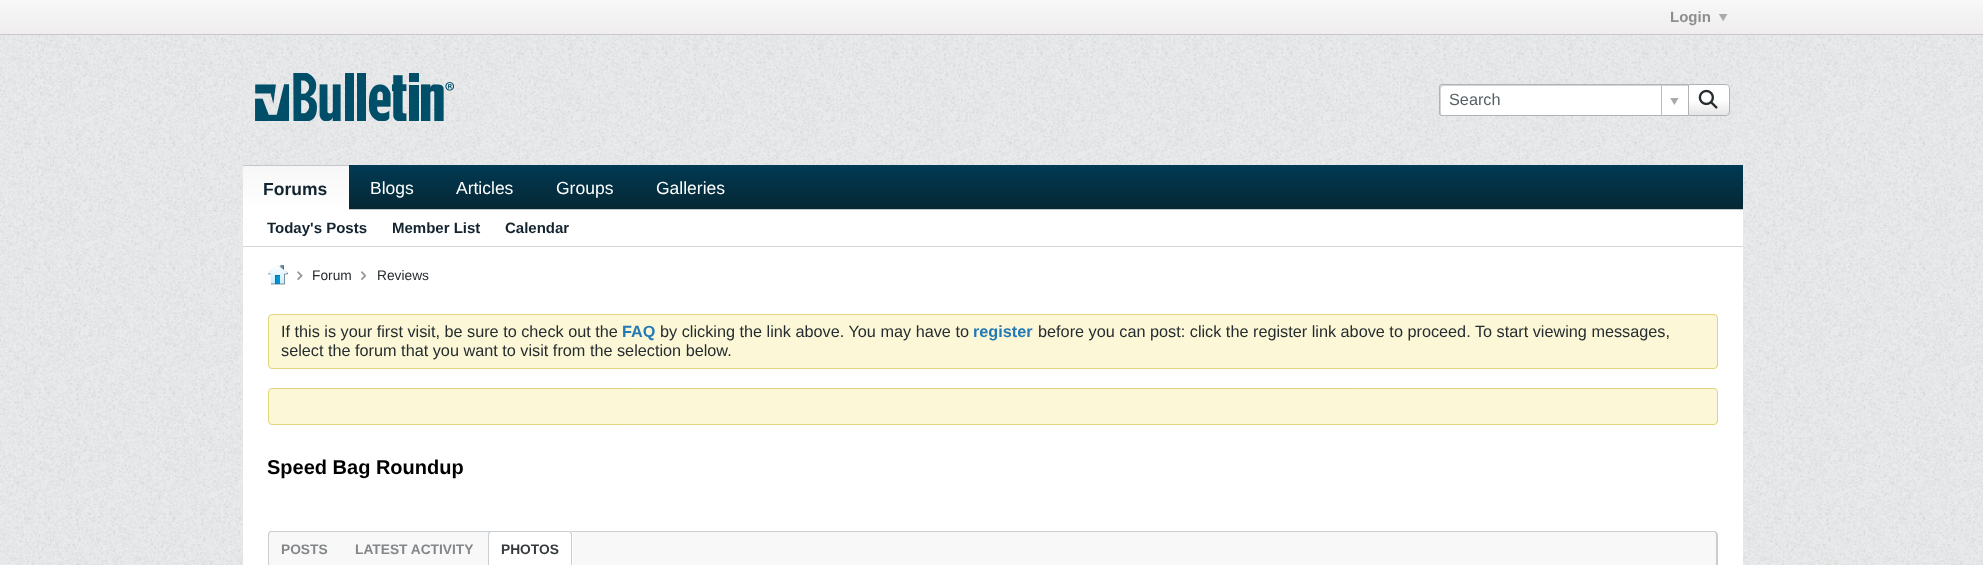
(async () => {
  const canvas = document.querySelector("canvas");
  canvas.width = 1983;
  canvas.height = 565;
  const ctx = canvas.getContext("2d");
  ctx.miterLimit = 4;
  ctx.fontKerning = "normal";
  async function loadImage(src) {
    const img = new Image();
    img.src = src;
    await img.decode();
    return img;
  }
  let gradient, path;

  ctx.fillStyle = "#eaebec";
  ctx.fillRect(0, 0, 1983, 565);
  ctx.drawImage(await loadImage("img/1.png"), 0, 35, 1983, 530);
  gradient = ctx.createLinearGradient(992, 0, 992, 34);
  gradient.addColorStop(0, "#f8f8f8");
  gradient.addColorStop(1, "#efedee");
  ctx.fillStyle = gradient;
  ctx.fillRect(0, 0, 1983, 34);
  ctx.fillStyle = "#c7c8c9";
  ctx.fillRect(0, 34, 1983, 1);
  ctx.drawImage(await loadImage("img/2.png"), 1719, 14, 9, 7);
  ctx.fillStyle = "#eaebec";
  ctx.fillRect(243, 35, 1500, 130);
  ctx.drawImage(await loadImage("img/3.png"), 242, 35, 1501, 130);
  ctx.drawImage(await loadImage("img/4.png"), 255, 73, 199, 48);
  ctx.fillStyle = "#ffffff";
  ctx.beginPath();
  ctx.roundRect(1439, 84, 249, 32, [4, 0, 0, 4]);
  ctx.fill();
  ctx.fillStyle = "#d5d5d5";
  path = new Path2D("M1444 86H1688V85H1442C1441 85 1440 86 1440 88V112C1440 113 1440 114 1441 115V93C1441 91 1440 86 1444 86Z");
  ctx.fill(path);
  ctx.fillStyle = "#aeb3b6";
  path = new Path2D("M1442 84H1688V116H1442C1440 116 1439 115 1439 112V88C1439 85 1440 84 1442 84ZM1442 85H1688V115H1442C1441 115 1440 114 1440 112V88C1440 86 1441 85 1442 85Z");
  ctx.fill(path, "evenodd");
  ctx.fillStyle = "#bdbdbd";
  ctx.fillRect(1661, 84, 1, 32);
  ctx.drawImage(await loadImage("img/5.png"), 1670, 98, 9, 7);
  ctx.fillStyle = "#ffffff";
  ctx.beginPath();
  ctx.roundRect(1688, 84, 42, 32, [0, 4, 4, 0]);
  ctx.fill();
  ctx.save();
  ctx.beginPath();
  ctx.roundRect(1688, 84, 42, 32, [0, 4, 4, 0]);
  ctx.clip();
  gradient = ctx.createLinearGradient(1709, 115, 1709, 85);
  gradient.addColorStop(0, "rgba(0, 0, 0, 0.1)");
  gradient.addColorStop(0.5, "rgba(0, 0, 0, 0)");
  gradient.addColorStop(0.5, "rgba(255, 255, 255, 0)");
  gradient.addColorStop(1, "rgba(255, 255, 255, 0.7)");
  ctx.fillStyle = gradient;
  ctx.fillRect(1689, 85, 41, 30);
  ctx.restore();
  ctx.beginPath();
  ctx.roundRect(1688.5, 84.5, 41, 31, [0, 3.5, 3.5, 0]);
  ctx.strokeStyle = "#aeb3b6";
  ctx.stroke();
  ctx.drawImage(await loadImage("img/6.png"), 1698, 89, 20, 20);
  gradient = ctx.createLinearGradient(993, 165, 993, 209);
  gradient.addColorStop(0, "#013a54");
  gradient.addColorStop(1, "#052733");
  ctx.fillStyle = gradient;
  ctx.fillRect(243, 165, 1500, 44);
  ctx.fillStyle = "#c4c7c8";
  ctx.fillRect(349, 209, 1394, 1);
  gradient = ctx.createLinearGradient(296, 123, 296, 166);
  gradient.addColorStop(0, "#f7f7f7");
  gradient.addColorStop(1, "#ffffff");
  ctx.fillStyle = gradient;
  ctx.beginPath();
  ctx.roundRect(243, 165, 106, 1, [1, 1, 0, 0]);
  ctx.fill();
  gradient = ctx.createLinearGradient(296, 166, 296, 210);
  gradient.addColorStop(0, "#f7f7f7");
  gradient.addColorStop(1, "#ffffff");
  ctx.fillStyle = gradient;
  ctx.fillRect(243, 166, 106, 44);
  for (const [x, y, w, h, color] of [
    [244, 165, 105, 1, "#c4c7c8"],
    [243, 210, 1500, 355, "#ffffff"],
    [243, 246, 1500, 1, "#d3d5d6"],
  ]) {
    ctx.fillStyle = color;
    ctx.fillRect(x, y, w, h);
  }
  ctx.drawImage(await loadImage("img/7.png"), 268, 265, 20, 20);
  ctx.drawImage(await loadImage("img/8.png"), 297, 271, 6, 9);
  ctx.drawImage(await loadImage("img/9.png"), 361, 271, 5, 9);
  ctx.fillStyle = "#fcf7d7";
  ctx.beginPath();
  ctx.roundRect(268.5, 314.5, 1449, 54, 3.5);
  ctx.fill();
  ctx.strokeStyle = "#e1d47e";
  ctx.stroke();
  ctx.beginPath();
  ctx.roundRect(268.5, 388.5, 1449, 36, 3.5);
  ctx.fill();
  ctx.stroke();
  ctx.fillStyle = "#f8f8f8";
  ctx.beginPath();
  ctx.roundRect(268, 531, 1450, 34, [4, 4, 0, 0]);
  ctx.fill();
  ctx.fillStyle = "#c9ced2";
  path = new Path2D("M271 531H1714C1716 531 1718 533 1718 535V565H268V535C268 533 269 531 271 531ZM271 532H1714C1715 532 1716 534 1716 535V565H269V535C269 534 270 532 271 532Z");
  ctx.fill(path, "evenodd");
  ctx.fillStyle = "#ffffff";
  ctx.beginPath();
  ctx.roundRect(488, 531, 85, 34, [4, 4, 0, 0]);
  ctx.fill();
  ctx.fillStyle = "#c9ced2";
  path = new Path2D("M491 531H569C571 531 572 533 572 535V565H488V535C488 533 489 531 491 531ZM491 532H569C570 532 571 534 571 535V565H489V535C489 534 490 532 491 532Z");
  ctx.fill(path, "evenodd");
  ctx.font = "bold 15px Liberation Sans";
  ctx.fillStyle = "#8e8e8e";
  ctx.fillText("Login", 1670, 22);
  ctx.font = "16.25px Liberation Sans";
  ctx.fillStyle = "#556065";
  ctx.fillText("Search", 1449, 105);
  ctx.font = "bold 17.5px Liberation Sans";
  ctx.fillStyle = "#13242f";
  ctx.fillText("Forums", 263, 195);
  ctx.font = "17.5px Liberation Sans";
  ctx.fillStyle = "#ffffff";
  for (const [text, x, y] of [
    ["Blogs", 370, 194],
    ["Articles", 456, 194],
    ["Groups", 556, 194],
    ["Galleries", 656, 194],
  ]) {
    ctx.fillText(text, x, y);
  }
  ctx.font = "bold 15px Liberation Sans";
  ctx.fillStyle = "#13242f";
  for (const [text, x, y] of [
    ["Today's Posts", 267, 233],
    ["Member List", 392, 233],
    ["Calendar", 505, 233],
  ]) {
    ctx.fillText(text, x, y);
  }
  ctx.font = "13.75px Liberation Sans";
  ctx.fillStyle = "#252c2f";
  ctx.fillText("Forum", 312, 280);
  ctx.fillText("Reviews", 377, 280);
  ctx.font = "16.25px Liberation Sans";
  ctx.fillText("If this is your first visit, be sure to check out the", 281, 337);
  ctx.font = "bold 16.25px Liberation Sans";
  ctx.fillStyle = "#2379b5";
  ctx.fillText("FAQ", 622, 337);
  ctx.font = "16.25px Liberation Sans";
  ctx.fillStyle = "#252c2f";
  ctx.fillText("by clicking the link above. You may have to", 660, 337);
  ctx.font = "bold 16.25px Liberation Sans";
  ctx.fillStyle = "#2379b5";
  ctx.fillText("register", 973, 337);
  ctx.font = "16.25px Liberation Sans";
  ctx.fillStyle = "#252c2f";
  ctx.fillText("before you can post: click the register link above to proceed. To start viewing messages,", 1038, 337);
  ctx.fillText("select the forum that you want to visit from the selection below.", 281, 356);
  ctx.font = "bold 20px Liberation Sans";
  ctx.fillStyle = "#000000";
  ctx.fillText("Speed Bag Roundup", 267, 474);
  ctx.font = "bold 13.75px Liberation Sans";
  ctx.fillStyle = "#838789";
  ctx.fillText("POSTS", 281, 554);
  ctx.fillText("LATEST ACTIVITY", 355, 554);
  ctx.fillStyle = "#343a3d";
  ctx.fillText("PHOTOS", 501, 554);
})();
